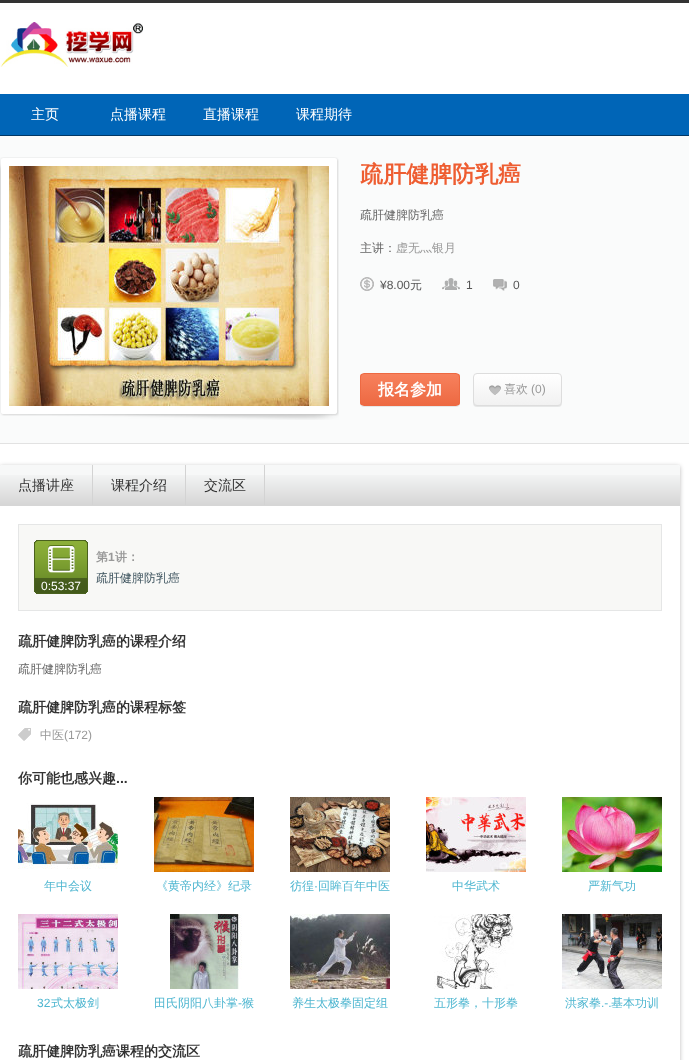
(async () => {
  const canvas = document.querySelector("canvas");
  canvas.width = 689;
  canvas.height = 1060;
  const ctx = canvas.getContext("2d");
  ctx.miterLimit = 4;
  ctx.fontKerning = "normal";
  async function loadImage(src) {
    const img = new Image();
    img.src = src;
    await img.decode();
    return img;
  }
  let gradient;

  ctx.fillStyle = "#ffffff";
  ctx.fillRect(0, 0, 689, 1060);
  for (const [x, y, w, h, color] of [
    [0, 0, 689, 3, "#333333"],
    [0, 135, 689, 1, "#013765"],
    [0, 94, 689, 41, "#0065b7"],
  ]) {
    ctx.fillStyle = color;
    ctx.fillRect(x, y, w, h);
  }
  ctx.drawImage(await loadImage("img/1.png"), 0, 22, 143, 45);
  ctx.fillStyle = "#fafbfb";
  ctx.fillRect(0, 136, 689, 307);
  ctx.fillStyle = "#e2e2e2";
  ctx.fillRect(0, 443, 689, 1);
  ctx.drawImage(await loadImage("img/2.png"), 0, 157, 339, 263);
  ctx.drawImage(await loadImage("img/3.png"), 9, 166, 320, 240);
  ctx.drawImage(await loadImage("img/4.png"), 360, 277, 14, 14);
  ctx.drawImage(await loadImage("img/5.png"), 442, 278, 18, 12);
  ctx.drawImage(await loadImage("img/6.png"), 493, 279, 14, 12);
  ctx.fillStyle = "rgba(0, 0, 0, 0.08)";
  ctx.filter = "blur(0.5px)";
  ctx.beginPath();
  ctx.roundRect(360, 374, 100, 33, 4);
  ctx.fill();
  ctx.filter = "none";
  ctx.save();
  ctx.beginPath();
  ctx.roundRect(360, 373, 100, 33, 4);
  ctx.clip();
  gradient = ctx.createLinearGradient(361, 374, 361, 405);
  gradient.addColorStop(0, "#f7815d");
  gradient.addColorStop(1, "#ed6942");
  ctx.fillStyle = gradient;
  ctx.fillRect(360, 374, 100, 31);
  ctx.restore();
  ctx.beginPath();
  ctx.roundRect(360.5, 373.5, 99, 32, 3.5);
  ctx.strokeStyle = "#ed6942";
  ctx.stroke();
  ctx.filter = "blur(0.5px)";
  ctx.beginPath();
  ctx.roundRect(473, 374, 89, 33, 4);
  ctx.fill();
  ctx.filter = "none";
  ctx.save();
  ctx.beginPath();
  ctx.roundRect(473, 373, 89, 33, 4);
  ctx.clip();
  gradient = ctx.createLinearGradient(474, 374, 474, 405);
  gradient.addColorStop(0, "#ffffff");
  gradient.addColorStop(1, "#f1f1f1");
  ctx.fillStyle = gradient;
  ctx.fillRect(473, 374, 89, 31);
  ctx.restore();
  ctx.beginPath();
  ctx.roundRect(473.5, 373.5, 88, 32, 3.5);
  ctx.strokeStyle = "#dddddd";
  ctx.stroke();
  ctx.drawImage(await loadImage("img/7.png"), 489, 385, 12, 10);
  ctx.fillStyle = "rgba(34, 25, 25, 0.3)";
  ctx.filter = "blur(2px)";
  ctx.beginPath();
  ctx.roundRect(0, 466, 680, 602, 2);
  ctx.fill();
  ctx.filter = "none";
  ctx.fillStyle = "#ffffff";
  ctx.beginPath();
  ctx.roundRect(0, 465, 680, 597, 2);
  ctx.fill();
  ctx.fillStyle = "#f7f8f8";
  ctx.beginPath();
  ctx.roundRect(0, 465, 680, 41, [2, 2, 0, 0]);
  ctx.fill();
  ctx.drawImage(await loadImage("img/8.png"), 0, 475, 680, 31);
  for (const [x, y, w, h, color] of [
    [92, 465, 1, 40, "#d3d3d3"],
    [185, 465, 1, 40, "#d3d3d3"],
    [264, 465, 1, 40, "#d3d3d3"],
    [19, 525, 642, 85, "#f8f8f6"],
    [18, 524, 644, 1, "#e5e6e6"],
    [661, 524, 1, 87, "#e5e6e6"],
    [18, 524, 1, 87, "#e5e6e6"],
    [19, 610, 642, 1, "#e5e6e6"],
  ]) {
    ctx.fillStyle = color;
    ctx.fillRect(x, y, w, h);
  }
  ctx.drawImage(await loadImage("img/9.png"), 34, 540, 54, 54);
  ctx.drawImage(await loadImage("img/10.png"), 18, 728, 13, 13);
  ctx.drawImage(await loadImage("img/11.png"), 18, 803, 100, 66);
  ctx.drawImage(await loadImage("img/12.png"), 154, 797, 100, 75);
  ctx.drawImage(await loadImage("img/13.png"), 290, 797, 100, 75);
  ctx.drawImage(await loadImage("img/14.png"), 426, 797, 100, 75);
  ctx.drawImage(await loadImage("img/15.png"), 562, 797, 100, 75);
  ctx.drawImage(await loadImage("img/16.png"), 18, 914, 100, 75);
  ctx.drawImage(await loadImage("img/17.png"), 170, 914, 72, 75);
  ctx.drawImage(await loadImage("img/18.png"), 290, 914, 100, 75);
  ctx.drawImage(await loadImage("img/19.png"), 434, 914, 80, 75);
  ctx.drawImage(await loadImage("img/20.png"), 562, 914, 100, 75);
  ctx.font = "500 14px WenQuanYi Zen Hei";
  ctx.fillStyle = "#ffffff";
  for (const [text, x, y] of [
    ["主页", 31, 119],
    ["点播课程", 110, 119],
    ["直播课程", 203, 119],
    ["课程期待", 296, 119],
  ]) {
    ctx.fillText(text, x, y);
  }
  ctx.font = "bold 23px WenQuanYi Zen Hei";
  ctx.fillStyle = "#ee5d31";
  ctx.fillText("疏肝健脾防乳癌", 360, 182);
  ctx.font = "500 12px WenQuanYi Zen Hei";
  ctx.fillStyle = "#666666";
  ctx.fillText("疏肝健脾防乳癌", 360, 219);
  ctx.fillText("主讲：", 360, 252);
  ctx.fillStyle = "#999999";
  ctx.fillText("虚无灬银月", 396, 252);
  ctx.font = "12px Liberation Sans";
  ctx.fillStyle = "#555555";
  ctx.fillText("¥8.00", 380, 289);
  ctx.font = "500 12px WenQuanYi Zen Hei";
  ctx.fillText("元", 410, 289);
  ctx.font = "12px Liberation Sans";
  ctx.fillText("1", 466, 289);
  ctx.fillText("0", 513, 289);
  ctx.font = "bold 16px WenQuanYi Zen Hei";
  ctx.fillStyle = "#ffffff";
  ctx.fillText("报名参加", 378, 395);
  ctx.font = "500 12px WenQuanYi Zen Hei";
  ctx.fillStyle = "#999999";
  ctx.fillText("喜欢", 504, 393);
  ctx.font = "12px Liberation Sans";
  ctx.fillText("(0)", 531, 393);
  ctx.font = "500 14px WenQuanYi Zen Hei";
  ctx.fillStyle = "#333333";
  for (const [text, x, y] of [
    ["点播讲座", 18, 490],
    ["课程介绍", 111, 490],
    ["交流区", 204, 490],
  ]) {
    ctx.fillText(text, x, y);
  }
  ctx.font = "bold 12px WenQuanYi Zen Hei";
  ctx.fillStyle = "#999999";
  ctx.fillText("第", 96, 561);
  ctx.font = "bold 12px Liberation Sans";
  ctx.fillText("1", 108, 561);
  ctx.font = "bold 12px WenQuanYi Zen Hei";
  ctx.fillText("讲：", 115, 561);
  ctx.font = "500 12px WenQuanYi Zen Hei";
  ctx.fillStyle = "#3d535e";
  ctx.fillText("疏肝健脾防乳癌", 96, 582);
  ctx.font = "12px Liberation Sans";
  ctx.fillStyle = "#ffffff";
  ctx.fillText("0:53:37", 41, 590);
  ctx.font = "bold 14px WenQuanYi Zen Hei";
  ctx.fillStyle = "#333333";
  ctx.fillText("疏肝健脾防乳癌的课程介绍", 18, 646);
  ctx.font = "500 12px WenQuanYi Zen Hei";
  ctx.fillStyle = "#666666";
  ctx.fillText("疏肝健脾防乳癌", 18, 673);
  ctx.font = "bold 14px WenQuanYi Zen Hei";
  ctx.fillStyle = "#333333";
  ctx.fillText("疏肝健脾防乳癌的课程标签", 18, 712);
  ctx.font = "500 12px WenQuanYi Zen Hei";
  ctx.fillStyle = "#999999";
  ctx.fillText("中医", 40, 739);
  ctx.font = "12px Liberation Sans";
  ctx.fillText("(172)", 64, 739);
  ctx.font = "bold 14px WenQuanYi Zen Hei";
  ctx.fillStyle = "#333333";
  ctx.fillText("你可能也感兴趣", 18, 783);
  ctx.font = "bold 14px Liberation Sans";
  ctx.fillText("...", 116, 783);
  ctx.font = "500 12px WenQuanYi Zen Hei";
  ctx.fillStyle = "#4eb6d0";
  for (const [text, x, y] of [
    ["年中会议", 44, 890],
    ["《黄帝内经》纪录", 156, 890],
    ["彷徨", 290, 890],
  ]) {
    ctx.fillText(text, x, y);
  }
  ctx.font = "12px Liberation Sans";
  ctx.fillText("·", 314, 890);
  ctx.font = "500 12px WenQuanYi Zen Hei";
  for (const [text, x, y] of [
    ["回眸百年中医", 318, 890],
    ["中华武术", 452, 890],
    ["严新气功", 588, 890],
  ]) {
    ctx.fillText(text, x, y);
  }
  ctx.font = "12px Liberation Sans";
  ctx.fillText("32", 37, 1007);
  ctx.font = "500 12px WenQuanYi Zen Hei";
  ctx.fillText("式太极剑", 51, 1007);
  ctx.fillText("田氏阴阳八卦掌", 154, 1007);
  ctx.font = "12px Liberation Sans";
  ctx.fillText("-", 238, 1007);
  ctx.font = "500 12px WenQuanYi Zen Hei";
  for (const [text, x, y] of [
    ["猴", 242, 1007],
    ["养生太极拳固定组", 292, 1007],
    ["五形拳，十形拳", 434, 1007],
    ["洪家拳", 565, 1007],
  ]) {
    ctx.fillText(text, x, y);
  }
  ctx.font = "12px Liberation Sans";
  ctx.fillText(".-.", 601, 1007);
  ctx.font = "500 12px WenQuanYi Zen Hei";
  ctx.fillText("基本功训", 611, 1007);
  ctx.font = "bold 14px WenQuanYi Zen Hei";
  ctx.fillStyle = "#333333";
  ctx.fillText("疏肝健脾防乳癌课程的交流区", 18, 1056);
})();
